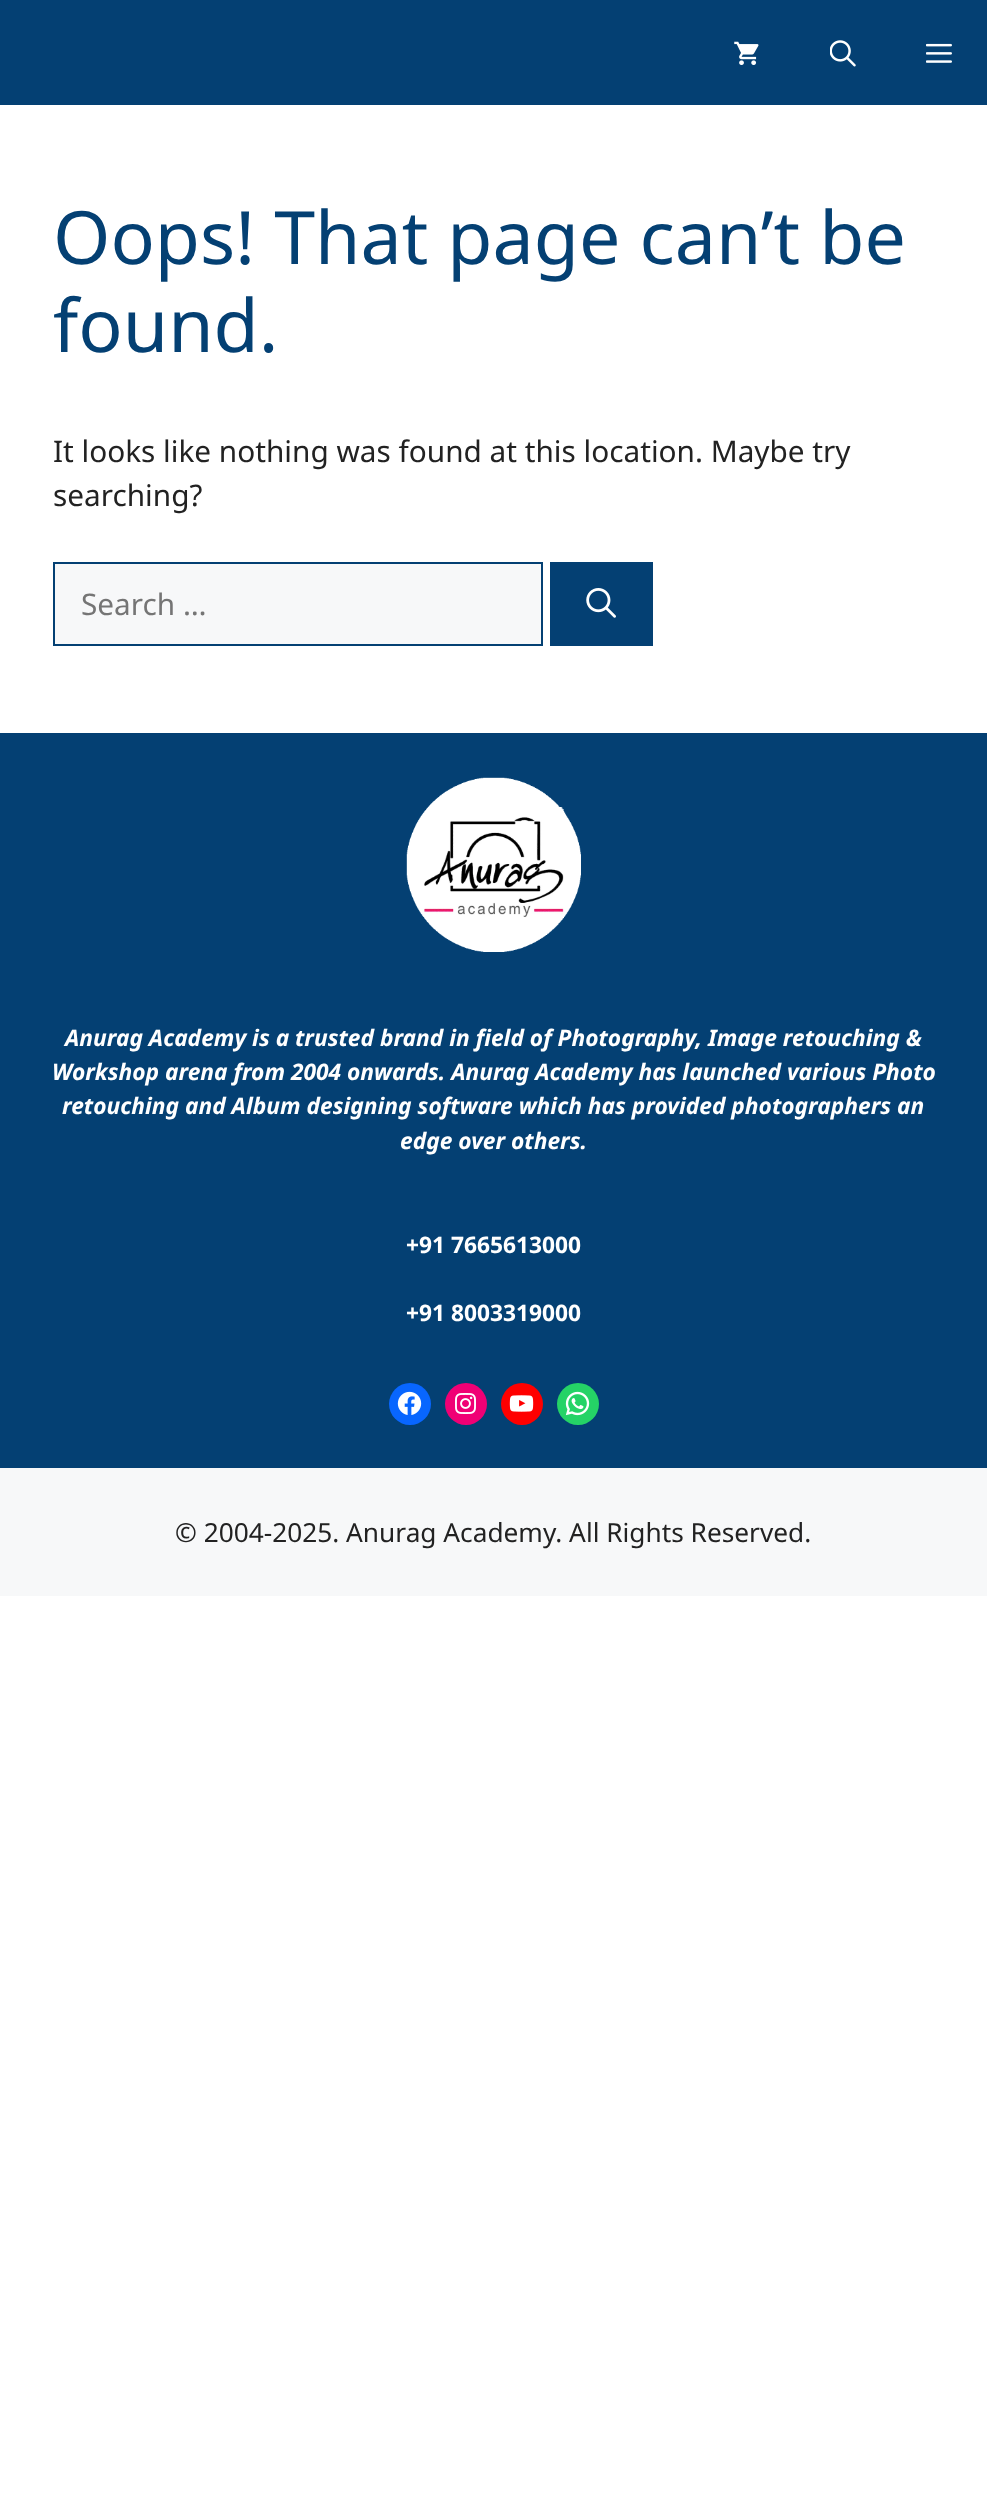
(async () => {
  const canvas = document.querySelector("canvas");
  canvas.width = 987;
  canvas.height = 2519;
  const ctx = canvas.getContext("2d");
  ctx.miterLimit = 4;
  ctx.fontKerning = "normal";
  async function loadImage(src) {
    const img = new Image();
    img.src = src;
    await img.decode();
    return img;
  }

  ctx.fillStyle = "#ffffff";
  ctx.fillRect(0, 0, 987, 2519);
  ctx.fillStyle = "#044073";
  ctx.fillRect(0, 0, 987, 105);
  ctx.drawImage(await loadImage("img/1.png"), 734, 41, 25, 24);
  ctx.drawImage(await loadImage("img/2.png"), 830, 40, 26, 27);
  ctx.drawImage(await loadImage("img/3.png"), 926, 43, 26, 20);
  ctx.fillStyle = "#f7f8f9";
  ctx.beginPath();
  ctx.rect(54, 563, 488, 82);
  ctx.fill();
  ctx.strokeStyle = "#044073";
  ctx.lineWidth = 2;
  ctx.stroke();
  ctx.fillStyle = "#044073";
  ctx.fillRect(550, 562, 103, 84);
  ctx.drawImage(await loadImage("img/4.png"), 586, 588, 30, 30);
  ctx.fillRect(0, 733, 987, 735);
  ctx.drawImage(await loadImage("img/5.png"), 406, 777, 175, 175);
  ctx.fillStyle = "#0866ff";
  ctx.beginPath();
  ctx.arc(410, 1404, 21, 0, Math.PI * 2);
  ctx.fill();
  ctx.drawImage(await loadImage("img/6.png"), 397, 1391, 25, 24);
  ctx.fillStyle = "#f00075";
  ctx.beginPath();
  ctx.arc(466, 1404, 21, 0, Math.PI * 2);
  ctx.fill();
  ctx.drawImage(await loadImage("img/7.png"), 455, 1393, 21, 21);
  ctx.fillStyle = "#ff0000";
  ctx.beginPath();
  ctx.arc(522, 1404, 21, 0, Math.PI * 2);
  ctx.fill();
  ctx.drawImage(await loadImage("img/8.png"), 509, 1395, 25, 17);
  ctx.fillStyle = "#25d366";
  ctx.beginPath();
  ctx.arc(578, 1404, 21, 0, Math.PI * 2);
  ctx.fill();
  ctx.drawImage(await loadImage("img/9.png"), 565, 1391, 25, 25);
  ctx.fillStyle = "#f7f8f9";
  ctx.fillRect(0, 1468, 987, 128);
  ctx.font = "73.5px Noto Sans";
  ctx.fillStyle = "#044073";
  ctx.fillText("Oops! That page can’t be", 53, 264);
  ctx.fillText("found.", 53, 352);
  ctx.font = "29.75px Noto Sans";
  ctx.fillStyle = "#222222";
  ctx.fillText("It looks like nothing was found at this location. Maybe try", 53, 462);
  ctx.fillText("searching?", 53, 506);
  ctx.fillStyle = "#757575";
  ctx.fillText("Search …", 81, 615);
  ctx.font = "italic bold 22.75px Noto Sans";
  ctx.fillStyle = "#ffffff";
  for (const [text, x, y] of [
    ["Anurag Academy is a trusted brand in field of Photography, Image retouching &", 65, 1046],
    ["Workshop arena from 2004 onwards. Anurag Academy has launched various Photo", 52, 1080],
    ["retouching and Album designing software which has provided photographers an", 62, 1114],
    ["edge over others.", 400, 1149],
  ]) {
    ctx.fillText(text, x, y);
  }
  ctx.font = "bold 22.75px Noto Sans";
  ctx.fillText("+91 7665613000", 406, 1253);
  ctx.fillText("+91 8003319000", 406, 1321);
  ctx.font = "26.25px Noto Sans";
  ctx.fillStyle = "#222222";
  ctx.fillText("© 2004-2025. Anurag Academy. All Rights Reserved.", 175, 1542);
})();
